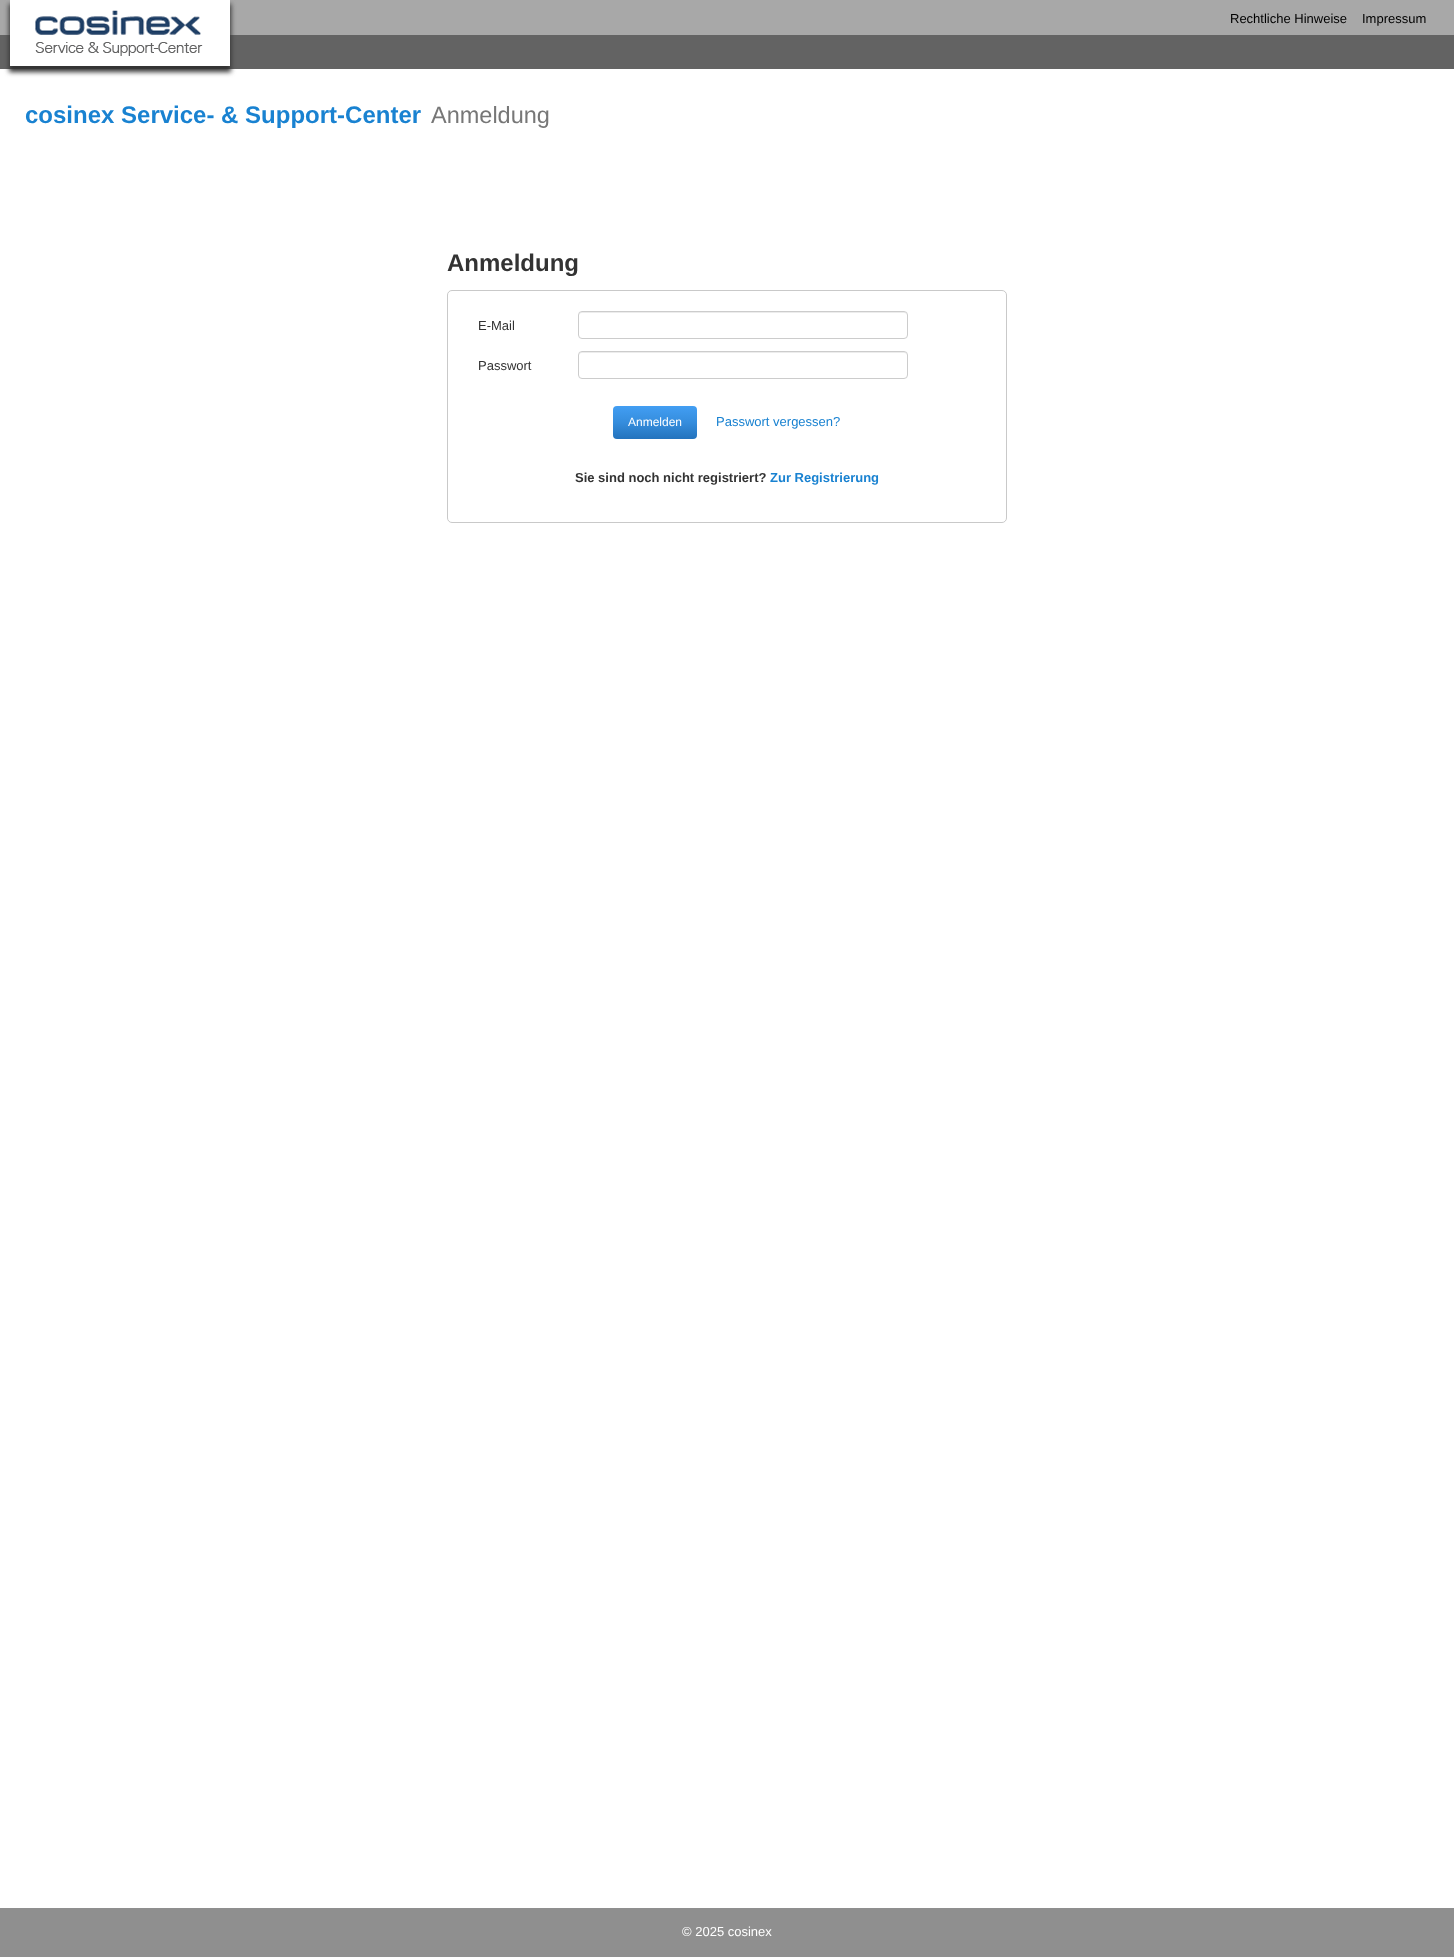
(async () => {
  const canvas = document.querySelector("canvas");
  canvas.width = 1454;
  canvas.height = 1957;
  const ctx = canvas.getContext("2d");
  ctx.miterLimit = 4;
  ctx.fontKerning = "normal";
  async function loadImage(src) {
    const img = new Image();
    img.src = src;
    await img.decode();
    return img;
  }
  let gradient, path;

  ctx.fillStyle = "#ffffff";
  ctx.fillRect(0, 0, 1454, 1957);
  ctx.fillStyle = "#636363";
  ctx.fillRect(0, 35, 1454, 34);
  ctx.fillStyle = "#a8a8a8";
  ctx.fillRect(0, 0, 1454, 35);
  ctx.fillStyle = "#333333";
  ctx.filter = "blur(2.5px)";
  ctx.beginPath();
  ctx.rect(9, 4, 222, 68);
  ctx.fill();
  ctx.filter = "none";
  ctx.fillStyle = "#ffffff";
  ctx.fillRect(10, 0, 220, 66);
  ctx.drawImage(await loadImage("img/1.png"), 35, 10, 168, 46);
  ctx.beginPath();
  ctx.roundRect(447.5, 290.5, 559, 232, 4.5);
  ctx.strokeStyle = "#c9c9c9";
  ctx.stroke();
  ctx.fillStyle = "#ececec";
  path = new Path2D("M582 313H904C906 313 907 314 907 316C907 314 906 312 904 312H582C580 312 579 314 579 316C579 314 580 313 582 313Z");
  ctx.fill(path);
  ctx.beginPath();
  ctx.roundRect(578.5, 311.5, 329, 27, 3.5);
  ctx.strokeStyle = "#cccccc";
  ctx.stroke();
  path = new Path2D("M582 353H904C906 353 907 354 907 356C907 354 906 352 904 352H582C580 352 579 354 579 356C579 354 580 353 582 353Z");
  ctx.fill(path);
  ctx.beginPath();
  ctx.roundRect(578.5, 351.5, 329, 27, 3.5);
  ctx.stroke();
  gradient = ctx.createLinearGradient(655, 406, 655, 439);
  gradient.addColorStop(0, "#429ef3");
  gradient.addColorStop(0.5, "#358ddd");
  gradient.addColorStop(1, "#2373bd");
  ctx.fillStyle = gradient;
  ctx.beginPath();
  ctx.roundRect(613, 406, 84, 33, 4);
  ctx.fill();
  ctx.fillStyle = "#8f8f8f";
  ctx.fillRect(0, 1908, 1454, 49);
  ctx.font = "13px Liberation Sans";
  ctx.fillStyle = "#000000";
  ctx.fillText("Rechtliche Hinweise", 1230, 23);
  ctx.fillText("Impressum", 1362, 23);
  ctx.font = "bold 24px Liberation Sans";
  ctx.fillStyle = "#1982d1";
  ctx.fillText("cosinex Service- & Support-Center", 25, 123);
  ctx.font = "23.5px Liberation Sans";
  ctx.fillStyle = "#777777";
  ctx.fillText("Anmeldung", 431, 123);
  ctx.font = "bold 24px Liberation Sans";
  ctx.fillStyle = "#333333";
  ctx.fillText("Anmeldung", 447, 271);
  ctx.font = "13px Liberation Sans";
  ctx.fillText("E-Mail", 478, 330);
  ctx.fillText("Passwort", 478, 370);
  ctx.font = "12px Liberation Sans";
  ctx.fillStyle = "#ffffff";
  ctx.fillText("Anmelden", 628, 426);
  ctx.font = "13px Liberation Sans";
  ctx.fillStyle = "#1982d1";
  ctx.fillText("Passwort vergessen?", 716, 426);
  ctx.font = "bold 13px Liberation Sans";
  ctx.fillStyle = "#333333";
  ctx.fillText("Sie sind noch nicht registriert?", 575, 482);
  ctx.fillStyle = "#1982d1";
  ctx.fillText("Zur Registrierung", 770, 482);
  ctx.font = "13px Liberation Sans";
  ctx.fillStyle = "#ffffff";
  ctx.fillText("© 2025 cosinex", 682, 1936);
})();
